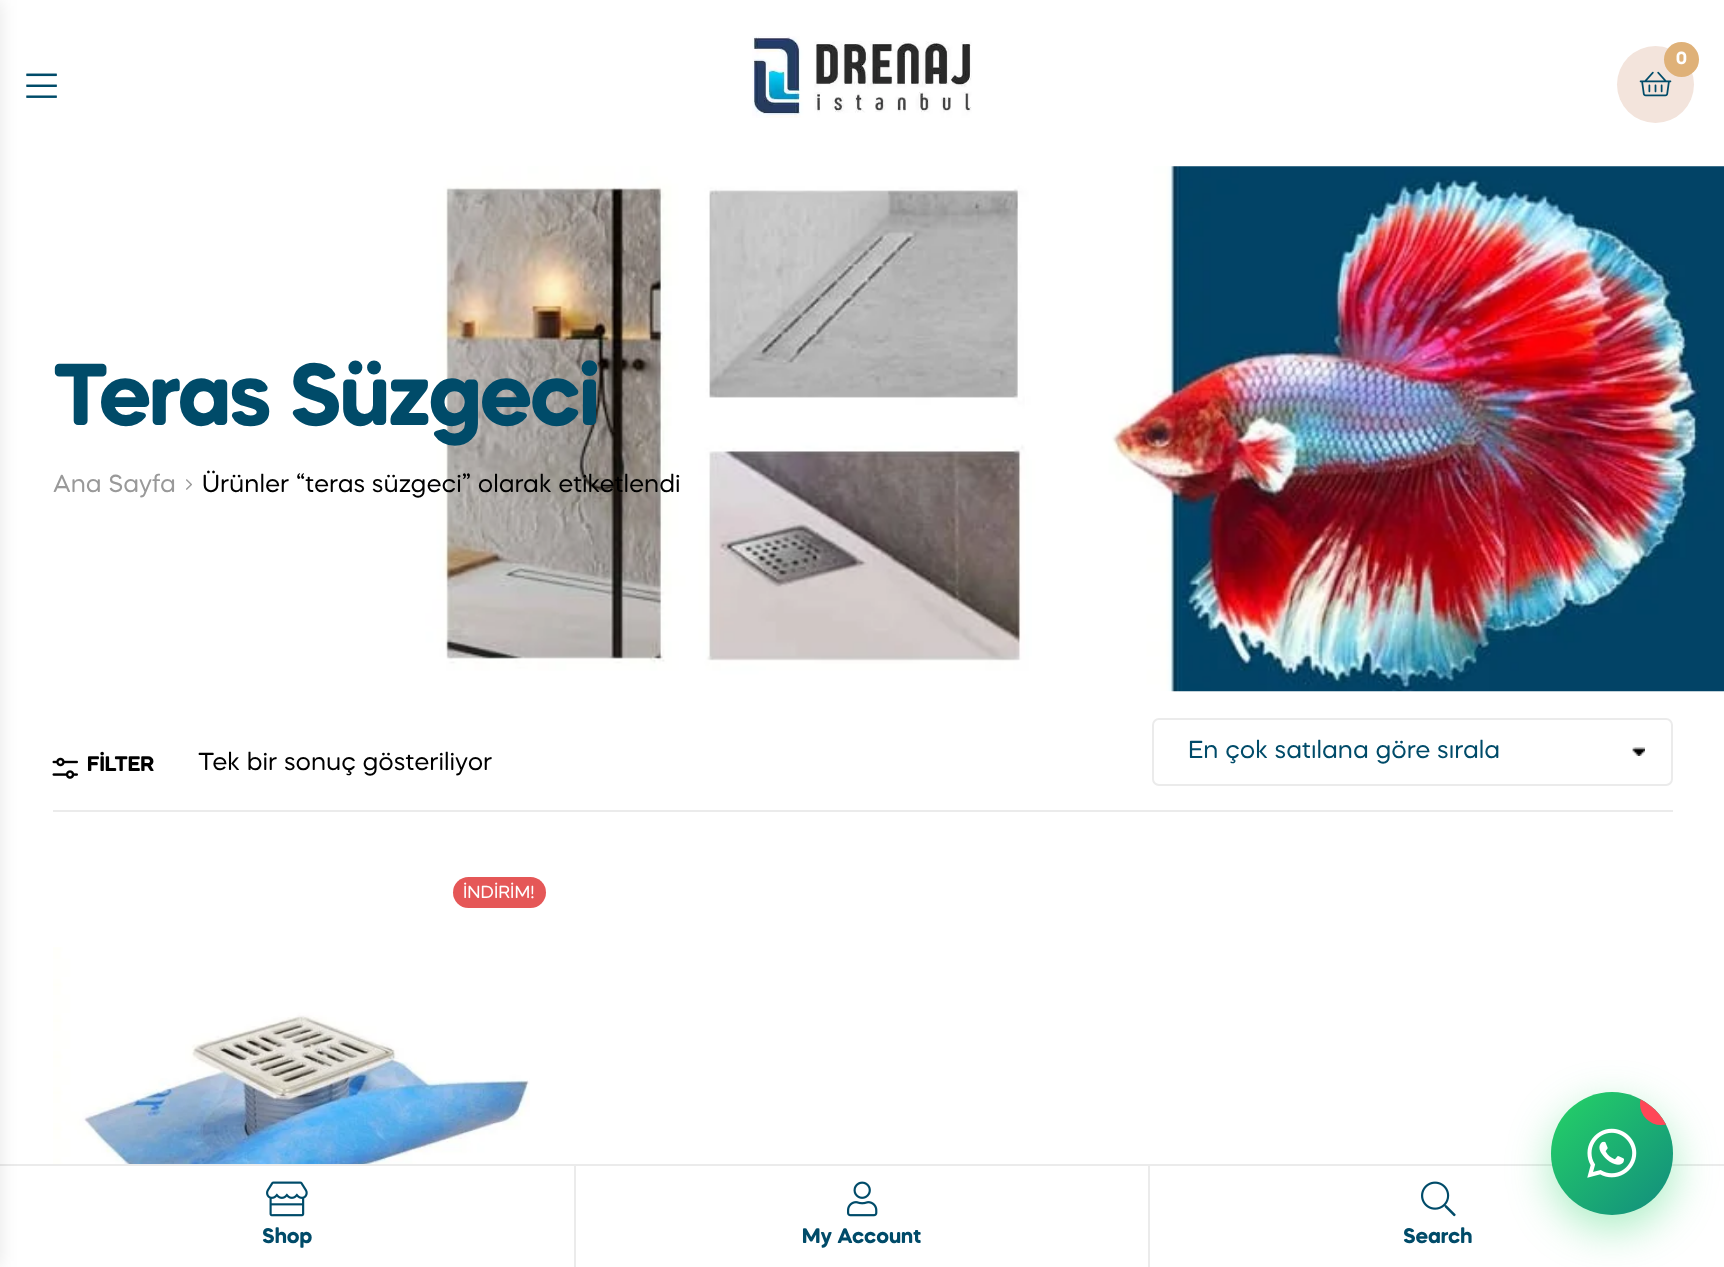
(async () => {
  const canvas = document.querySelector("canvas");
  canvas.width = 1724;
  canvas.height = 1267;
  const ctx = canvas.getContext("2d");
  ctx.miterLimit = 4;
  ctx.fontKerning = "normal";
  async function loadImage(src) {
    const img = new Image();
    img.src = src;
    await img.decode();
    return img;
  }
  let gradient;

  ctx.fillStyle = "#ffffff";
  ctx.fillRect(0, 0, 1724, 1267);
  ctx.drawImage(await loadImage("img/3.png"), 26, 73, 31, 25);
  ctx.drawImage(await loadImage("img/4.png"), 0, 166, 1724, 526);
  ctx.fillStyle = "#ebebeb";
  ctx.fillRect(0, 1164, 1724, 2);
  ctx.fillStyle = "rgba(0, 0, 0, 0.1)";
  ctx.filter = "blur(9px)";
  ctx.beginPath();
  ctx.rect(-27, 0, 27, 1267);
  ctx.fill();
  ctx.filter = "none";
  ctx.drawImage(await loadImage("img/1.png"), 752, 36, 220, 82);
  ctx.fillStyle = "#f3e4dc";
  ctx.beginPath();
  ctx.arc(1655.5, 84.5, 38.5, 0, Math.PI * 2);
  ctx.fill();
  ctx.drawImage(await loadImage("img/2.png"), 1639, 71, 33, 26);
  ctx.fillStyle = "#dfb178";
  ctx.beginPath();
  ctx.arc(1681.5, 59.5, 17.5, 0, Math.PI * 2);
  ctx.fill();
  ctx.drawImage(await loadImage("img/5.png"), 186, 479, 6, 11);
  ctx.fillStyle = "#ebebeb";
  ctx.fillRect(53, 810, 1620, 2);
  ctx.drawImage(await loadImage("img/6.png"), 52, 757, 26, 22);
  ctx.drawImage(await loadImage("img/7.png"), 1632, 747, 13, 9);
  ctx.beginPath();
  ctx.roundRect(1153, 719, 519, 66, 6);
  ctx.strokeStyle = "#ebebeb";
  ctx.lineWidth = 2;
  ctx.stroke();
  ctx.fillStyle = "#e55757";
  ctx.beginPath();
  ctx.roundRect(453, 877, 93, 31, 15.5);
  ctx.fill();
  ctx.drawImage(await loadImage("img/8.png"), 53, 947, 477, 217);
  ctx.fillStyle = "#ebebeb";
  ctx.fillRect(574, 1164, 2, 103);
  ctx.drawImage(await loadImage("img/9.png"), 266, 1181, 42, 36);
  ctx.fillRect(1148, 1164, 2, 103);
  ctx.drawImage(await loadImage("img/10.png"), 847, 1181, 31, 36);
  ctx.drawImage(await loadImage("img/11.png"), 1421, 1181, 35, 36);
  ctx.fillStyle = "rgba(37, 211, 102, 0.4)";
  ctx.filter = "blur(22px)";
  ctx.beginPath();
  ctx.roundRect(1551, 1106, 122, 123, 61);
  ctx.fill();
  ctx.filter = "none";
  gradient = ctx.createLinearGradient(1551, 1092, 1673, 1215);
  gradient.addColorStop(0, "#25d366");
  gradient.addColorStop(1, "#128c7e");
  ctx.fillStyle = gradient;
  ctx.beginPath();
  ctx.roundRect(1551, 1092, 122, 123, 61);
  ctx.fill();
  ctx.save();
  ctx.beginPath();
  ctx.roundRect(1551, 1092, 122, 123, 61);
  ctx.clip();
  ctx.fillStyle = "#ff4757";
  ctx.beginPath();
  ctx.arc(1661, 1104, 21, 0, Math.PI * 2);
  ctx.fill();
  ctx.restore();
  ctx.drawImage(await loadImage("img/12.png"), 1587, 1128, 50, 50);
  ctx.font = "bold 17.5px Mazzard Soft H";
  ctx.fillStyle = "#ffffff";
  ctx.fillText("0", 1676, 64);
  ctx.letterSpacing = "-1.75px";
  ctx.font = "bold 87.5px Mazzard Soft H";
  ctx.fillStyle = "#004b69";
  ctx.fillText("Teras Süzgeci", 53, 425);
  ctx.letterSpacing = "0px";
  ctx.font = "24.5px Mazzard Soft H";
  ctx.fillStyle = "#999999";
  ctx.fillText("Ana Sayfa", 53, 492);
  ctx.fillStyle = "#000000";
  ctx.fillText("Ürünler “teras süzgeci” olarak etiketlendi", 202, 492);
  ctx.font = "bold 21px Mazzard Soft H";
  ctx.fillText("FİLTER", 87, 771);
  ctx.font = "24.5px Mazzard Soft H";
  ctx.fillText("Tek bir sonuç gösteriliyor", 198, 770);
  ctx.fillStyle = "#004b69";
  ctx.fillText("En çok satılana göre sırala", 1188, 758);
  ctx.font = "17.5px Mazzard Soft H";
  ctx.fillStyle = "#ffffff";
  ctx.fillText("İNDİRİM!", 463, 898);
  ctx.font = "bold 21px Mazzard Soft H";
  ctx.fillStyle = "#004b69";
  for (const [text, x, y] of [
    ["Shop", 262, 1243],
    ["My Account", 802, 1243],
    ["Search", 1403, 1243],
  ]) {
    ctx.fillText(text, x, y);
  }
})();
